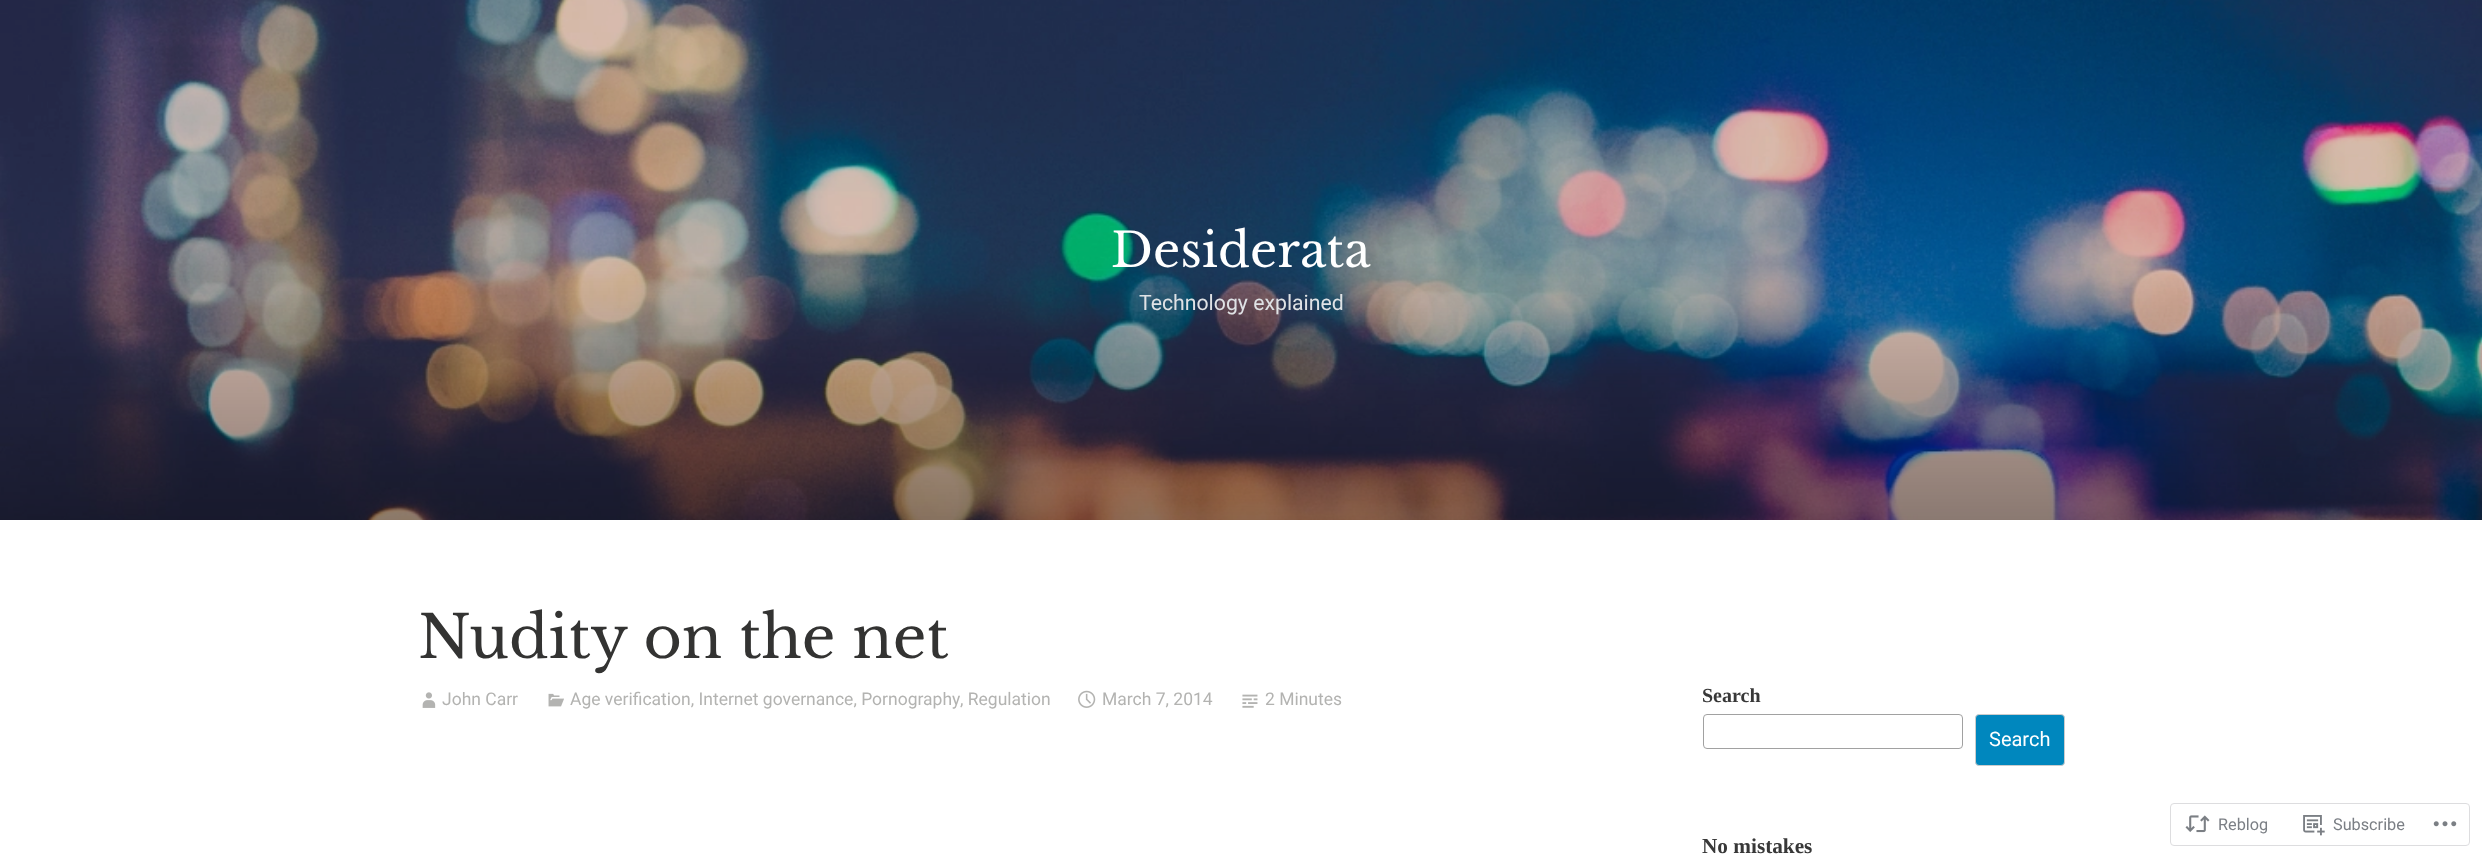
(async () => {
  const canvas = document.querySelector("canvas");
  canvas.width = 2482;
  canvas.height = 858;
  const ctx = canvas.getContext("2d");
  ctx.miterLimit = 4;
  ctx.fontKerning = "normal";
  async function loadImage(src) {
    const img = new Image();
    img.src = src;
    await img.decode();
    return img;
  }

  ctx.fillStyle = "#ffffff";
  ctx.fillRect(0, 0, 2482, 858);
  ctx.drawImage(await loadImage("img/1.png"), 0, 0, 2482, 520);
  ctx.drawImage(await loadImage("img/2.png"), 422, 692, 14, 16);
  ctx.drawImage(await loadImage("img/3.png"), 548, 693, 16, 14);
  ctx.drawImage(await loadImage("img/4.png"), 1078, 690, 18, 18);
  ctx.drawImage(await loadImage("img/5.png"), 1242, 694, 16, 14);
  ctx.beginPath();
  ctx.roundRect(1703.5, 714.5, 259, 34, 3.5);
  ctx.strokeStyle = "#a1a1a1";
  ctx.stroke();
  ctx.fillStyle = "#0087be";
  ctx.beginPath();
  ctx.roundRect(1975.5, 714.5, 89, 51, 3.5);
  ctx.fill();
  ctx.strokeStyle = "#cccccc";
  ctx.stroke();
  ctx.beginPath();
  ctx.roundRect(2170.5, 803.5, 299, 42, 3.5);
  ctx.strokeStyle = "#dddddf";
  ctx.stroke();
  ctx.drawImage(await loadImage("img/6.png"), 2185, 815, 25, 18);
  ctx.drawImage(await loadImage("img/7.png"), 2303, 815, 22, 21);
  ctx.drawImage(await loadImage("img/8.png"), 2433, 821, 24, 6);
  ctx.font = "47.5px Libre Baskerville";
  ctx.fillStyle = "#ffffff";
  ctx.fillText("Desiderata", 1111, 267);
  ctx.font = "21.25px Roboto";
  ctx.fillStyle = "#dfe2e5";
  ctx.fillText("Technology explained", 1139, 310);
  ctx.font = "58.75px Libre Baskerville";
  ctx.fillStyle = "#333332";
  ctx.fillText("Nudity on the net", 418, 658);
  ctx.font = "17.5px Roboto";
  ctx.fillStyle = "#b3b3b1";
  for (const [text, x, y] of [
    ["John Carr", 442, 705],
    ["Age verification, Internet governance, Pornography", 570, 705],
    [", Regulation", 960, 705],
    ["March 7, 2014", 1102, 705],
    ["2 Minutes", 1265, 705],
  ]) {
    ctx.fillText(text, x, y);
  }
  ctx.font = "bold 20px Liberation Serif";
  ctx.fillStyle = "#383838";
  ctx.fillText("Search", 1702, 702);
  ctx.font = "20px Roboto";
  ctx.fillStyle = "#ffffff";
  ctx.fillText("Search", 1989, 746);
  ctx.font = "bold 21.25px Liberation Serif";
  ctx.fillStyle = "#383838";
  ctx.fillText("No mistakes", 1702, 853);
  ctx.font = "16.25px Roboto";
  ctx.fillStyle = "#7b7f85";
  ctx.fillText("Reblog", 2218, 830);
  ctx.fillText("Subscribe", 2333, 830);
})();
